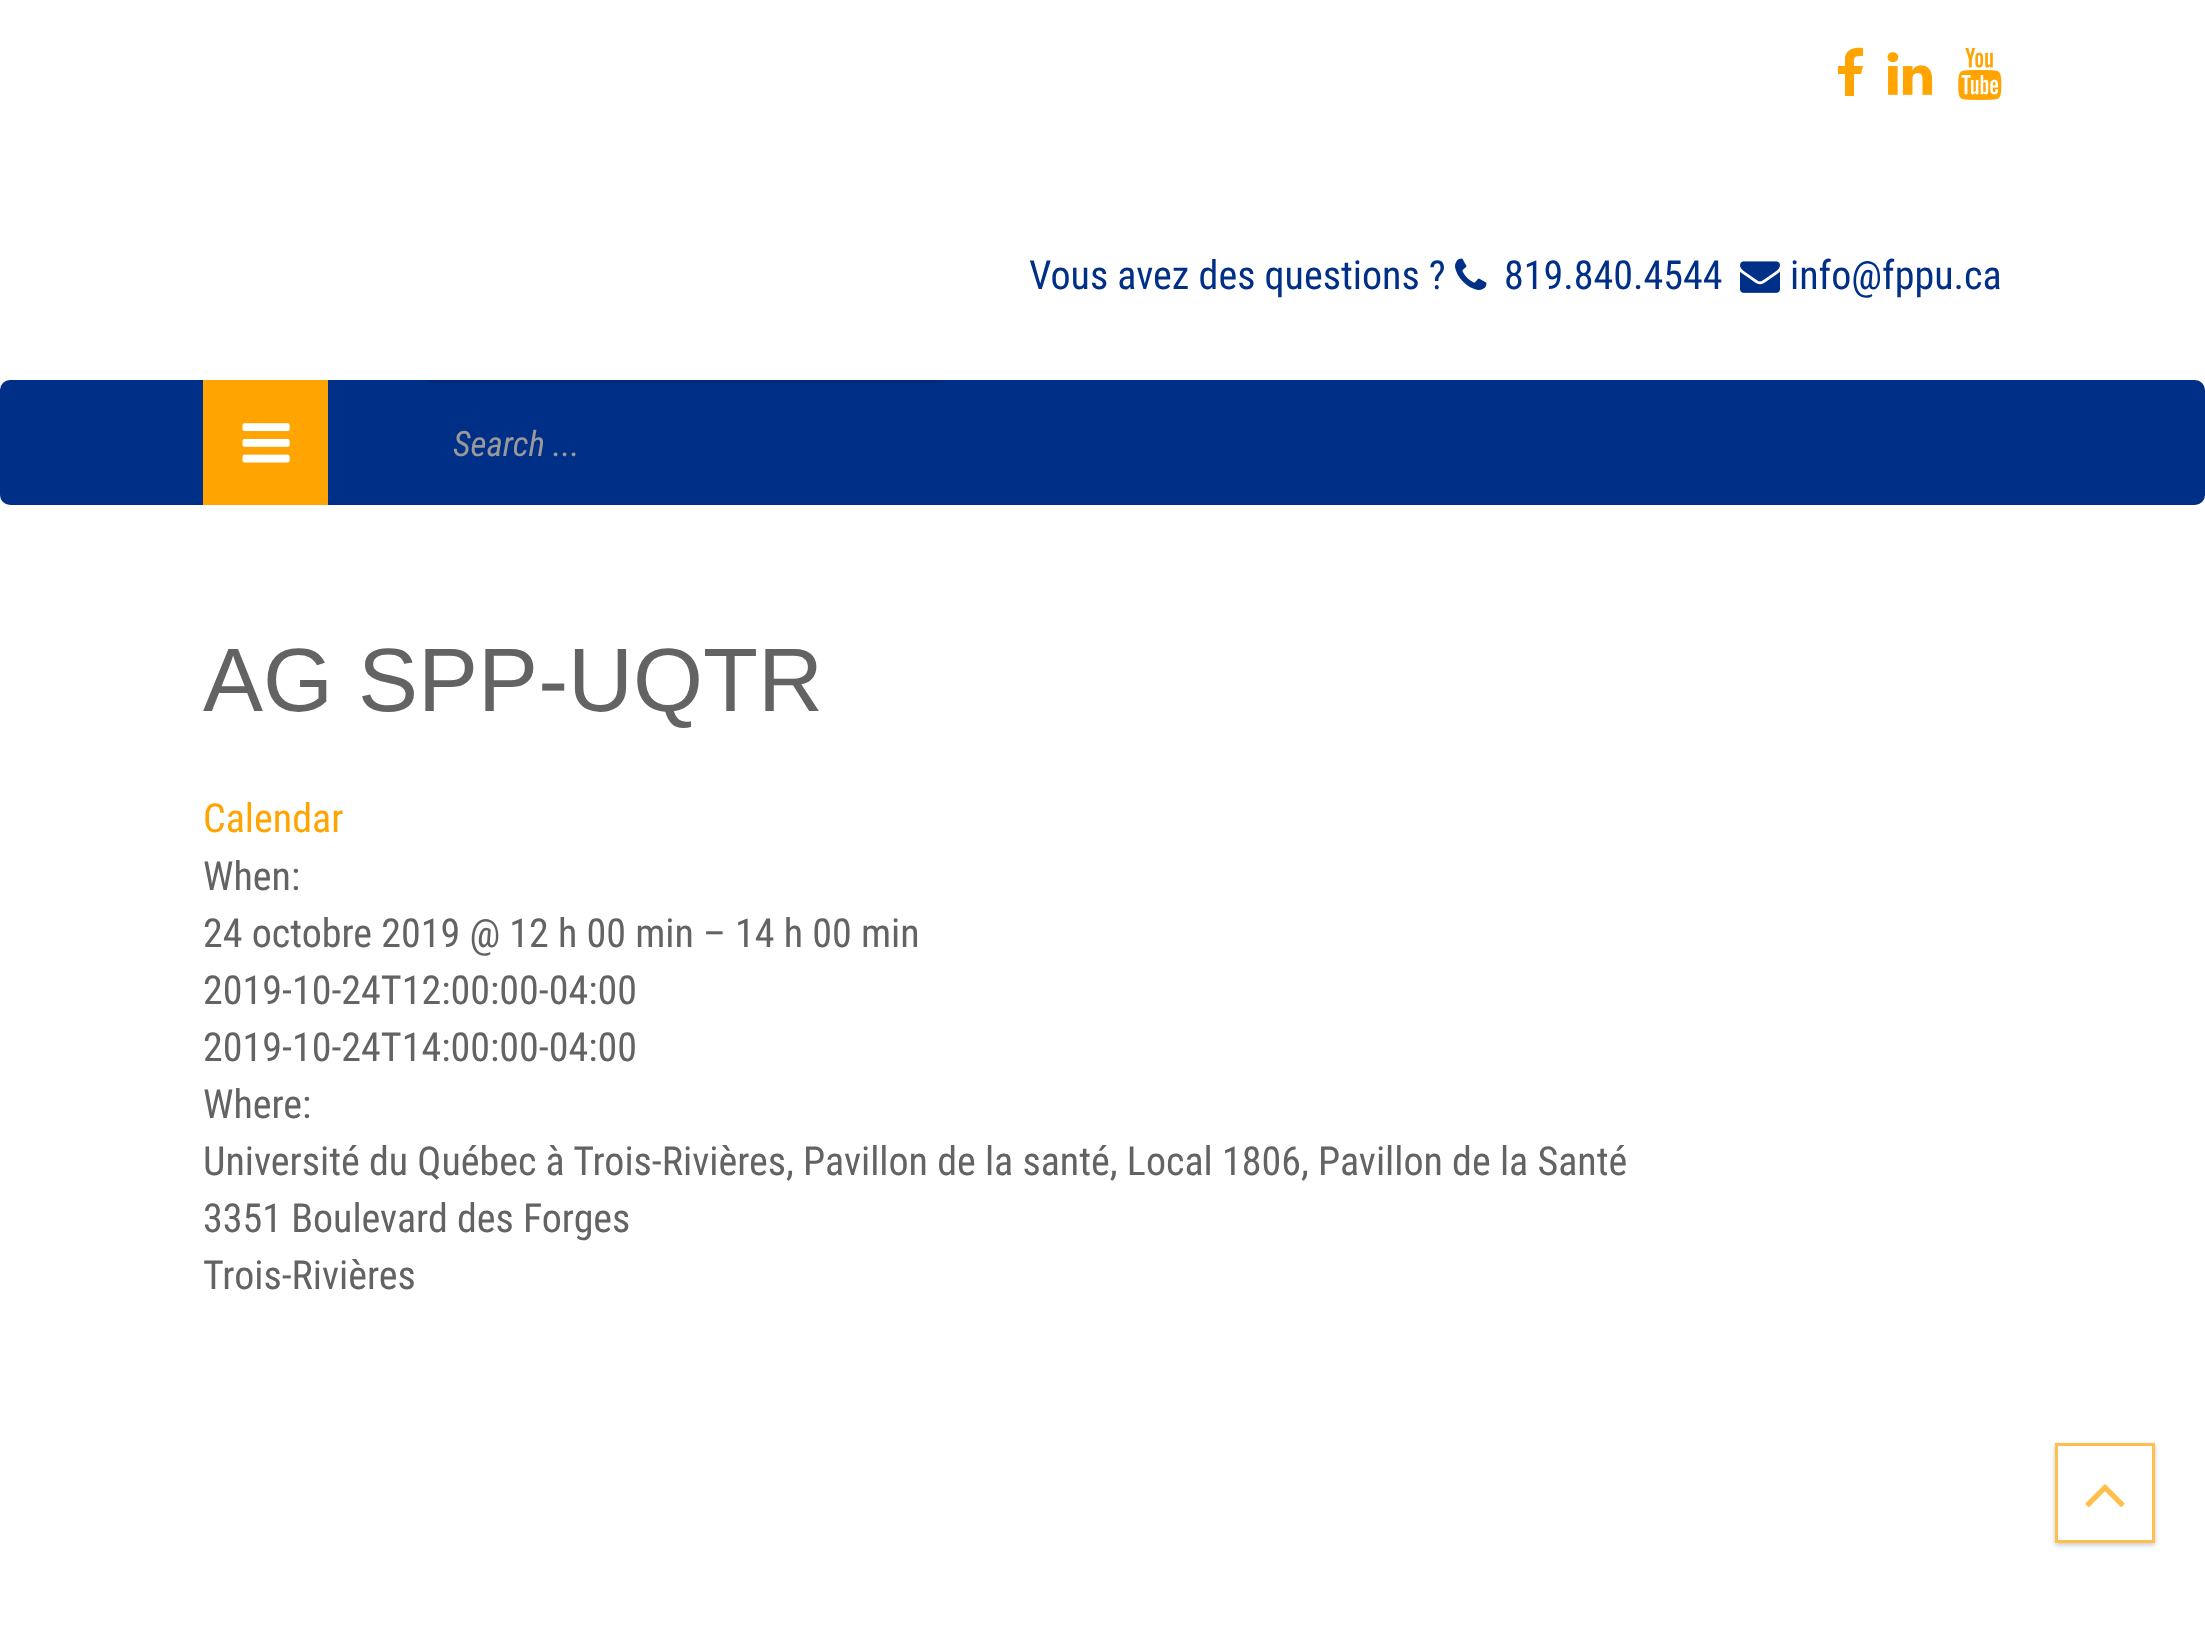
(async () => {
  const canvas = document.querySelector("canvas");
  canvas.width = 2205;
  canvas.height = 1642;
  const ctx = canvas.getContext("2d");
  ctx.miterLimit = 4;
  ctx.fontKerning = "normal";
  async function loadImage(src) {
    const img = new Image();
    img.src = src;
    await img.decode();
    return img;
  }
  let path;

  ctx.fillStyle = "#ffffff";
  ctx.fillRect(0, 0, 2205, 1642);
  ctx.fillStyle = "#ffa400";
  path = new Path2D("M1863 48C1856 47 1847 48 1845 57V66H1838V74H1845V96H1854V74H1861L1863 66H1854C1854 57 1853 56 1863 56Z");
  ctx.fill(path);
  ctx.drawImage(await loadImage("img/1.png"), 1887, 52, 46, 43);
  ctx.drawImage(await loadImage("img/2.png"), 1958, 47, 44, 53);
  ctx.drawImage(await loadImage("img/3.png"), 1455, 258, 32, 32);
  ctx.drawImage(await loadImage("img/4.png"), 1740, 261, 40, 32);
  ctx.fillStyle = "#002f87";
  ctx.beginPath();
  ctx.roundRect(0, 380, 2205, 125, 10);
  ctx.fill();
  ctx.fillStyle = "#ffa400";
  ctx.fillRect(203, 380, 125, 125);
  ctx.drawImage(await loadImage("img/5.png"), 242, 423, 48, 40);
  ctx.fillStyle = "#002b7d";
  ctx.fillRect(428, 380, 515, 3);
  ctx.save();
  path = new Path2D("M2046 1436H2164V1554H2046ZM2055 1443H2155V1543H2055Z");
  ctx.clip(path, "evenodd");
  ctx.fillStyle = "rgba(107, 118, 142, 0.4)";
  ctx.filter = "blur(2.5px)";
  ctx.beginPath();
  ctx.rect(2055, 1445, 100, 100);
  ctx.fill();
  ctx.filter = "none";
  ctx.restore();
  ctx.strokeStyle = "#ffbf4d";
  ctx.lineWidth = 3;
  ctx.strokeRect(2056.5, 1444.5, 97, 97);
  ctx.drawImage(await loadImage("img/6.png"), 2085, 1484, 40, 23);
  ctx.font = "40px Roboto Condensed";
  ctx.fillStyle = "#002f87";
  for (const [text, x, y] of [
    ["Vous avez des questions ?", 1029, 289],
    ["819.840.4544", 1504, 289],
    ["info@fppu.ca", 1790, 289],
  ]) {
    ctx.fillText(text, x, y);
  }
  ctx.font = "italic 35px Roboto Condensed";
  ctx.fillStyle = "#999999";
  ctx.fillText("Search ...", 453, 456);
  ctx.font = "90px Liberation Sans";
  ctx.fillStyle = "#636363";
  ctx.fillText("AG SPP-UQTR", 203, 711);
  ctx.font = "40px Roboto Condensed";
  ctx.fillStyle = "#ffa400";
  ctx.fillText("Calendar", 203, 832);
  ctx.fillStyle = "#636363";
  for (const [text, x, y] of [
    ["When:", 203, 890],
    ["24 octobre 2019 @ 12 h 00 min – 14 h 00 min", 203, 947],
    ["2019-10-24T12:00:00-04:00", 203, 1004],
    ["2019-10-24T14:00:00-04:00", 203, 1061],
    ["Where:", 203, 1118],
    ["Université du Québec à Trois-Rivières, Pavillon de la santé, Local 1806, Pavillon de la Santé", 203, 1175],
    ["3351 Boulevard des Forges", 203, 1232],
    ["Trois-Rivières", 203, 1289],
  ]) {
    ctx.fillText(text, x, y);
  }
})();
